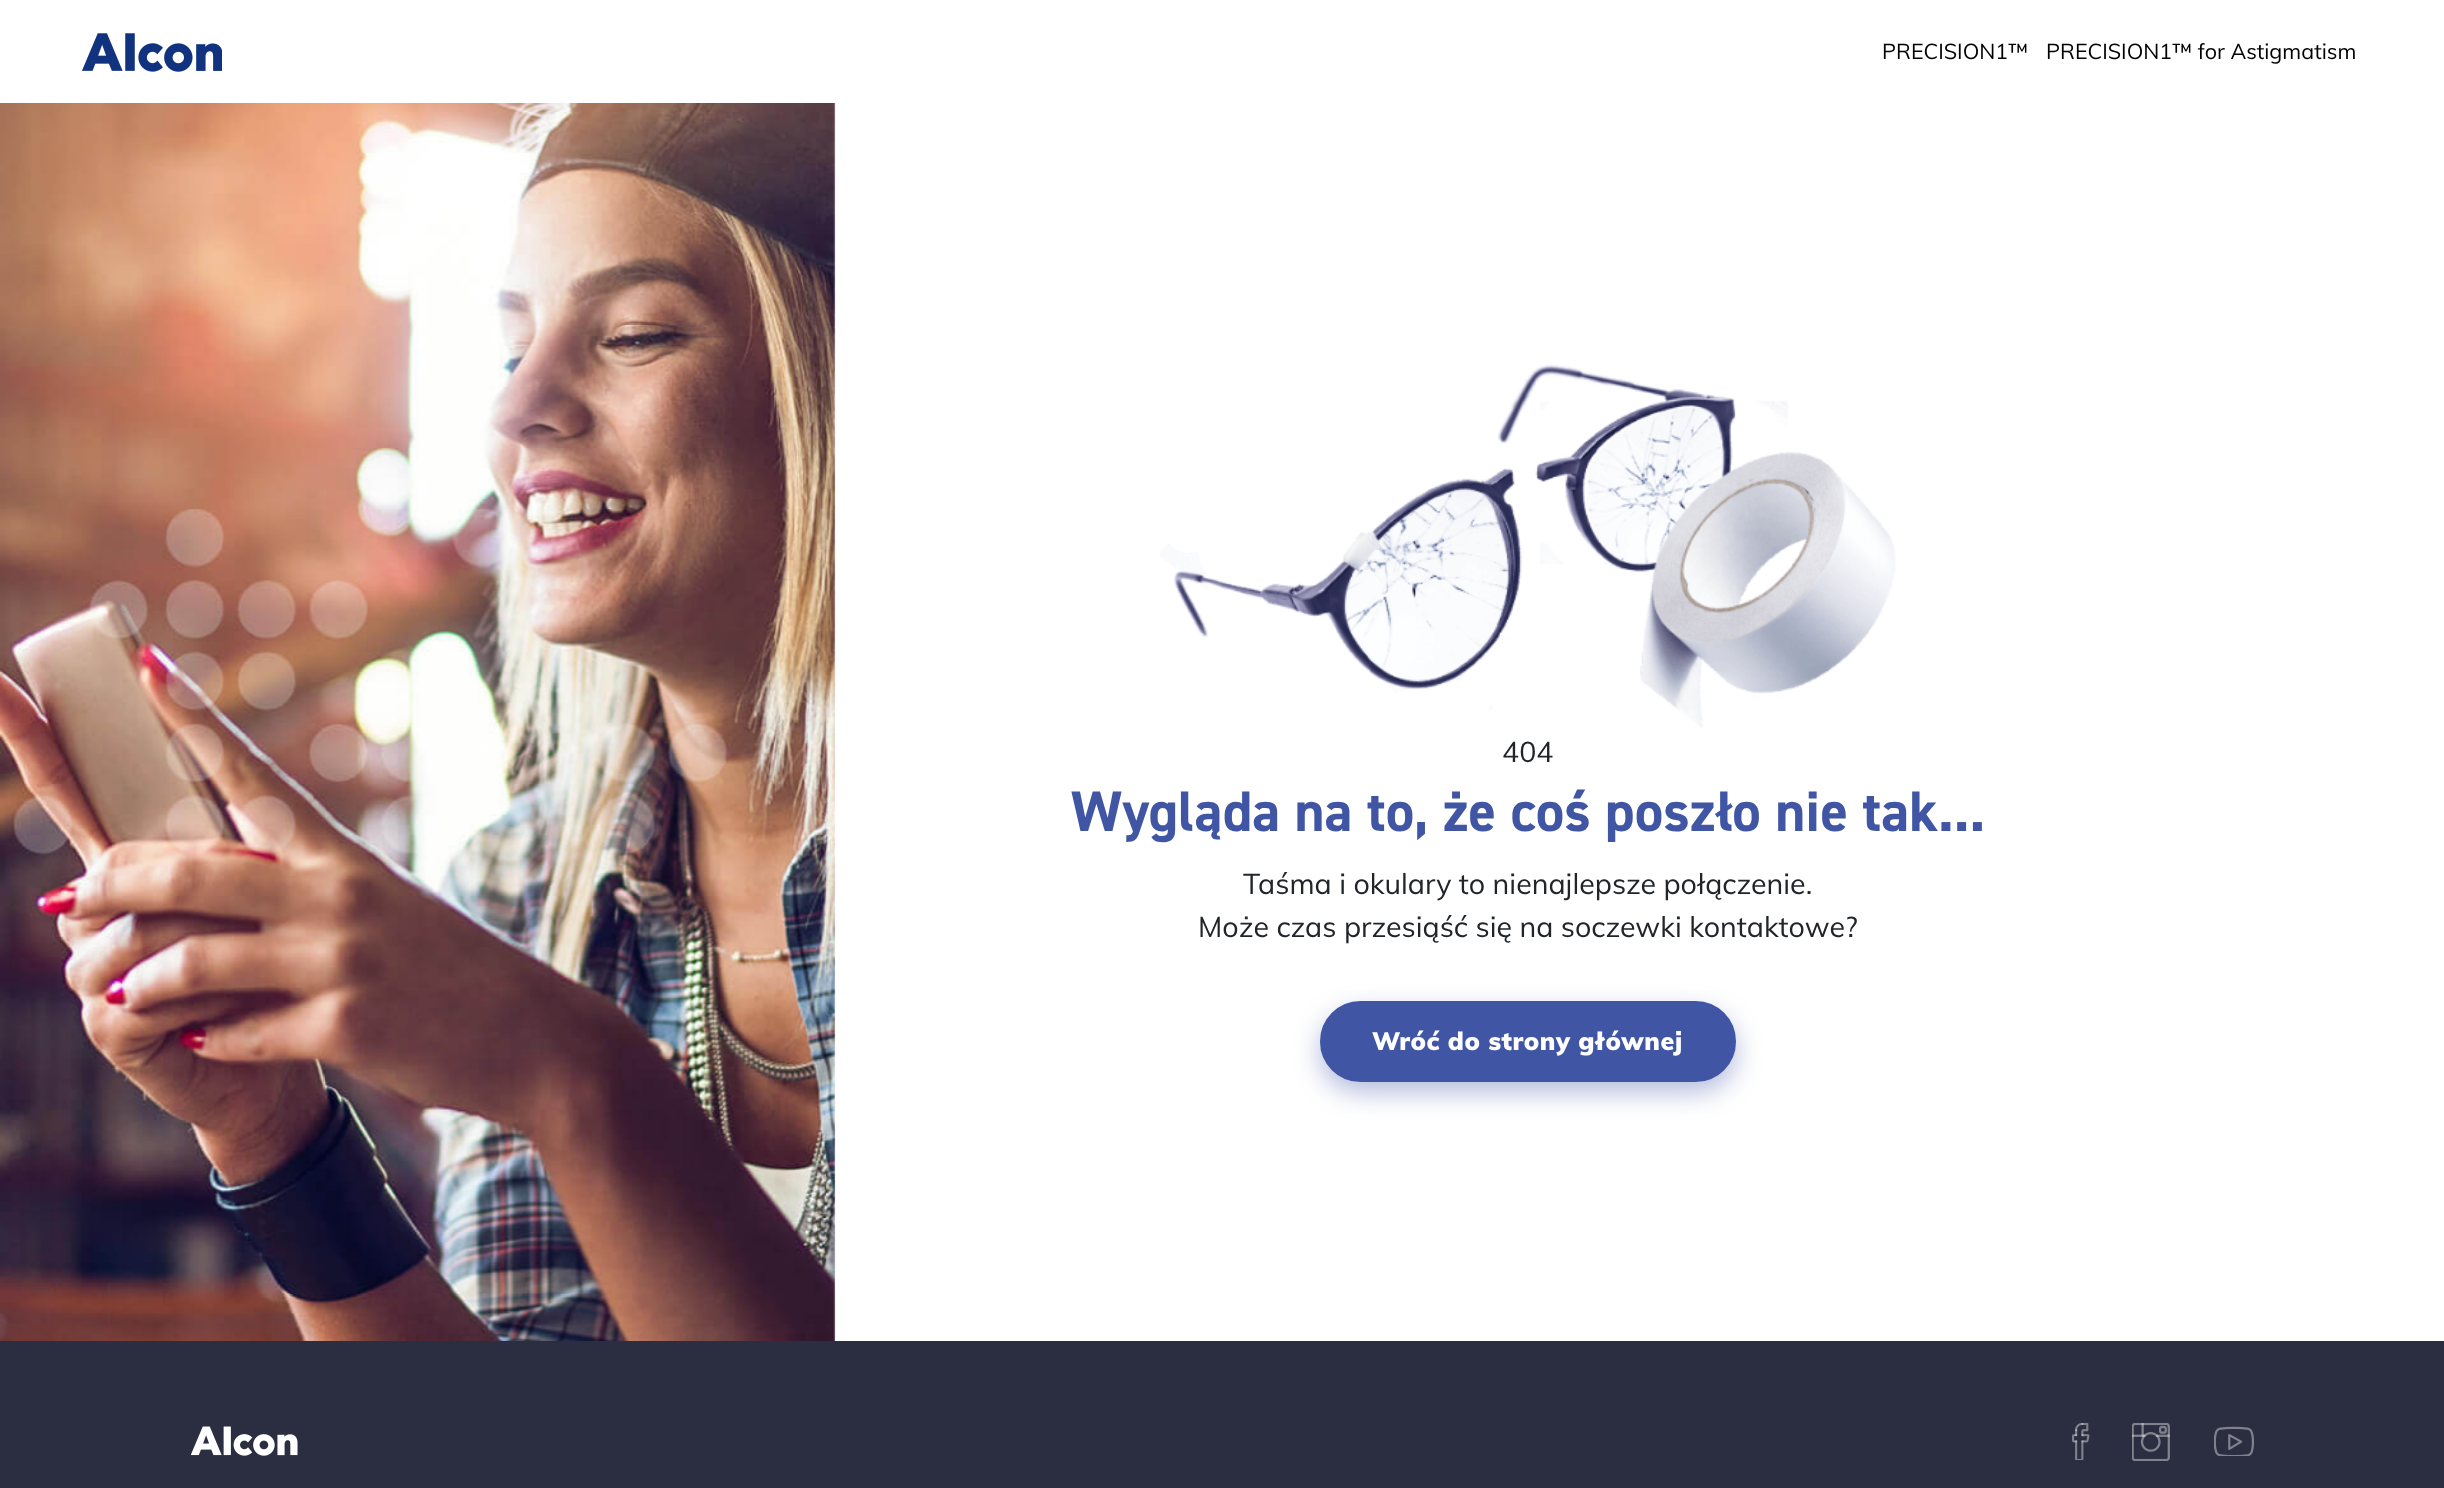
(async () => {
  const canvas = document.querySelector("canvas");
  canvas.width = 2444;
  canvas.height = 1488;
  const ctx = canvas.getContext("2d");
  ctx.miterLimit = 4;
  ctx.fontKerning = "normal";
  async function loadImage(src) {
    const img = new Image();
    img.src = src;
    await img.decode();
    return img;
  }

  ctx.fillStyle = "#ffffff";
  ctx.fillRect(0, 0, 2444, 1488);
  ctx.drawImage(await loadImage("img/1.png"), 82, 33, 140, 39);
  ctx.drawImage(await loadImage("img/2.png"), 0, 103, 836, 1238);
  ctx.drawImage(await loadImage("img/3.png"), 1160, 364, 736, 364);
  ctx.fillStyle = "rgba(64, 86, 165, 0.4)";
  ctx.filter = "blur(13px)";
  ctx.beginPath();
  ctx.roundRect(1320, 1012, 416, 80, 40);
  ctx.fill();
  ctx.filter = "none";
  ctx.fillStyle = "#4056a5";
  ctx.beginPath();
  ctx.roundRect(1321, 1002, 414, 79, 39.5);
  ctx.fill();
  ctx.strokeStyle = "#4056a5";
  ctx.lineWidth = 2;
  ctx.stroke();
  ctx.fillStyle = "#2a2e40";
  ctx.fillRect(0, 1341, 2444, 147);
  ctx.drawImage(await loadImage("img/4.png"), 191, 1426, 107, 30);
  ctx.drawImage(await loadImage("img/5.png"), 2072, 1423, 18, 37);
  ctx.drawImage(await loadImage("img/6.png"), 2132, 1423, 38, 38);
  ctx.drawImage(await loadImage("img/7.png"), 2214, 1426, 40, 30);
  ctx.font = "21.5px Muli";
  ctx.fillStyle = "#000000";
  ctx.fillText("PRECISION1™", 1882, 59);
  ctx.fillText("PRECISION1™ for Astigmatism", 2046, 59);
  ctx.font = "28.6px Muli";
  ctx.fillStyle = "#212529";
  ctx.fillText("404", 1502, 762);
  ctx.font = "bold 57.25px 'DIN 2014'";
  ctx.fillStyle = "#4056a5";
  ctx.fillText("Wygląda na to, że coś poszło nie tak...", 1071, 831);
  ctx.font = "28.6px Muli";
  ctx.fillStyle = "#212529";
  ctx.fillText("Taśma i okulary to nienajlepsze połączenie.", 1243, 894);
  ctx.fillText("Może czas przesiąść się na soczewki kontaktowe?", 1198, 937);
  ctx.letterSpacing = "0.6px";
  ctx.font = "900 25px Muli";
  ctx.fillStyle = "#ffffff";
  ctx.fillText("Wróć do strony głównej", 1372, 1050);
})();
